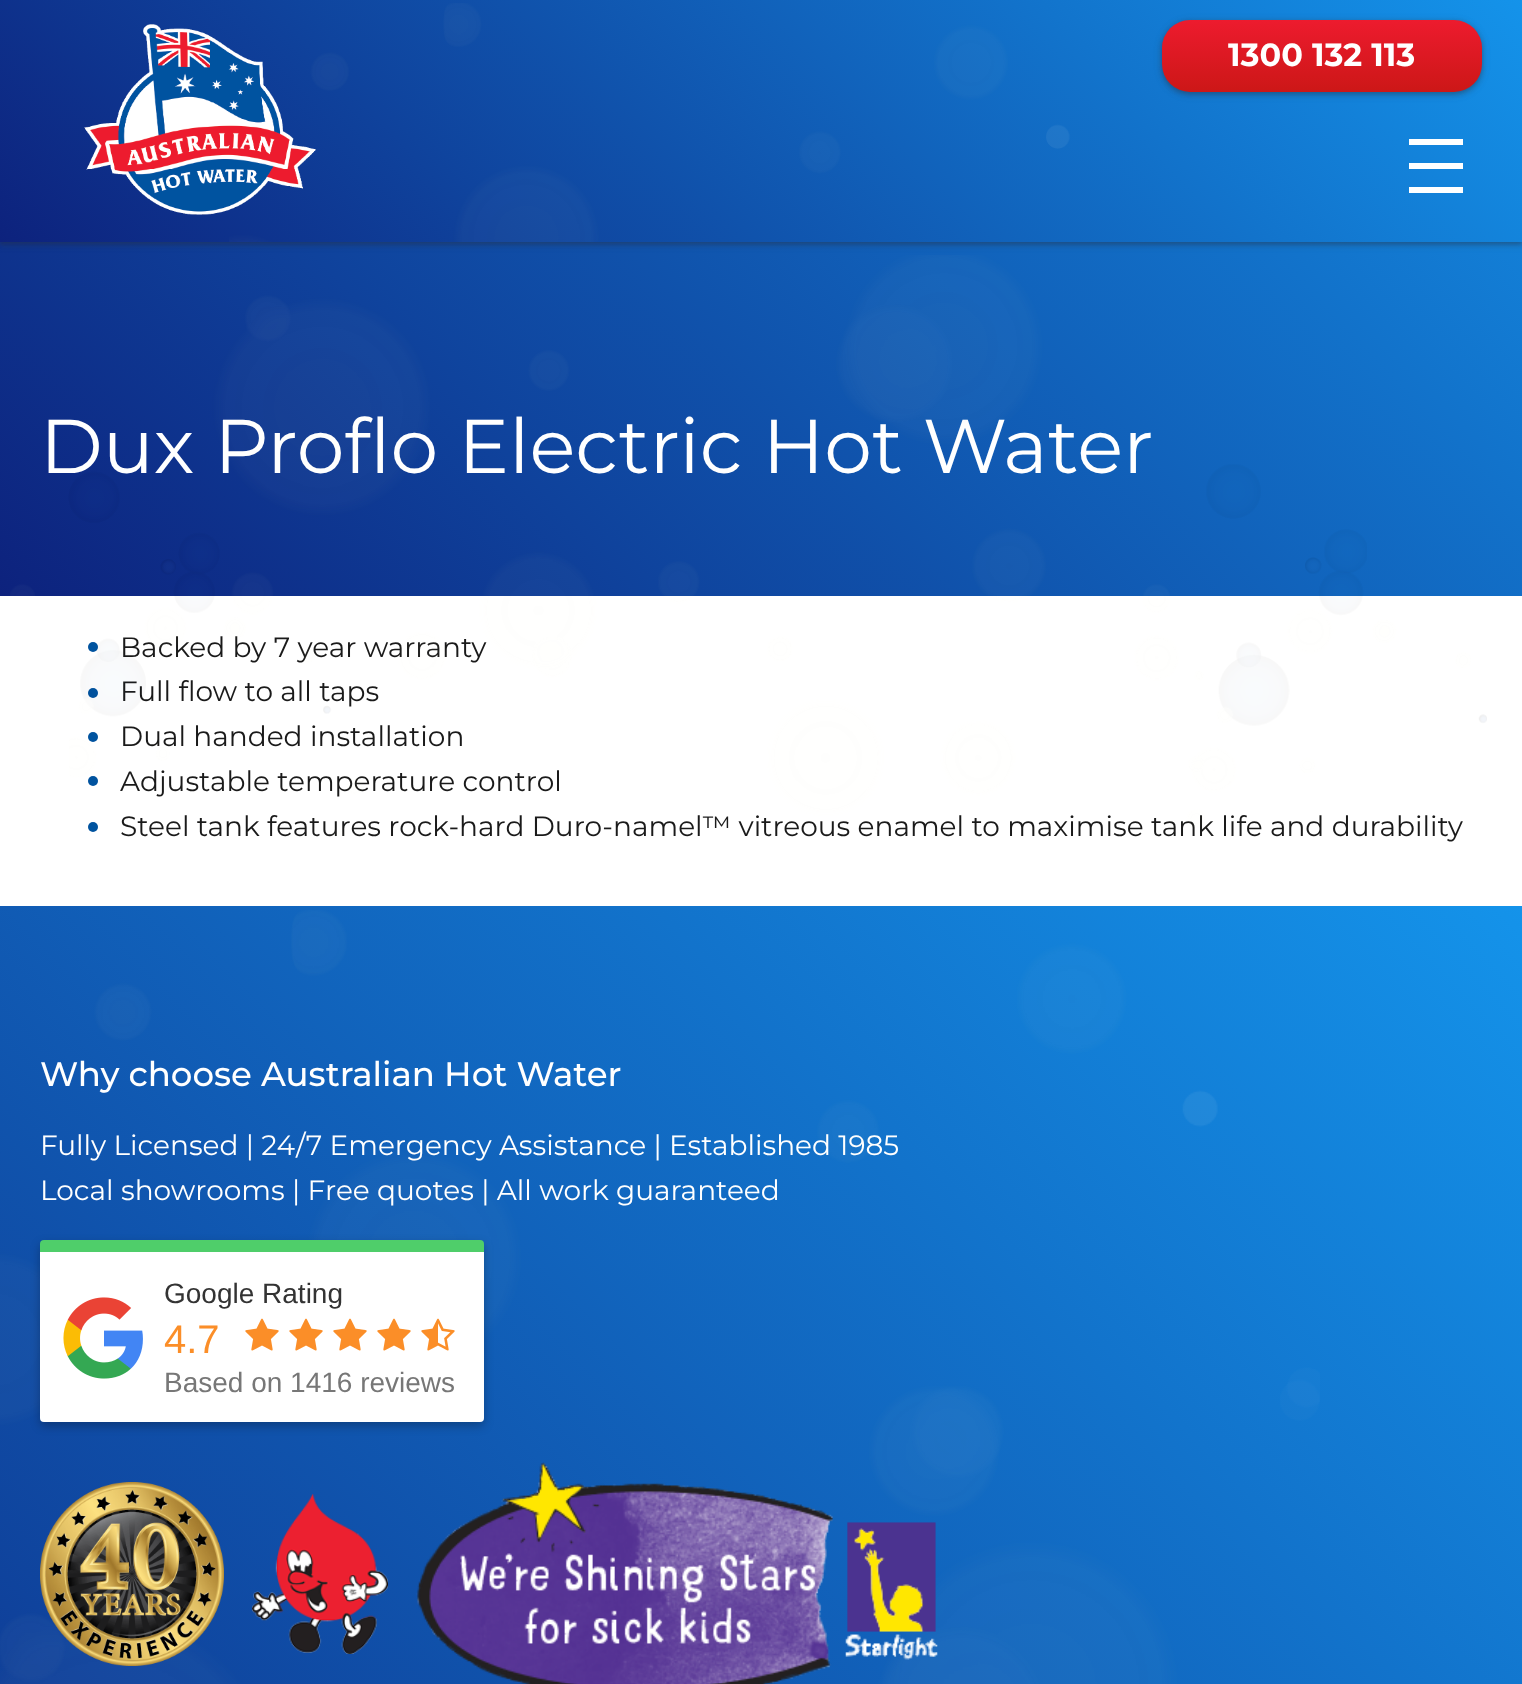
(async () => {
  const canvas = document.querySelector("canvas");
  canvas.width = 1522;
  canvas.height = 1684;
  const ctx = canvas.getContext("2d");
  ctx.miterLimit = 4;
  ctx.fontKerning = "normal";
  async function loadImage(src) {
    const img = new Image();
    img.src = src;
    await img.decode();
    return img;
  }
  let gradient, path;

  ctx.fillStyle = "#ffffff";
  ctx.fillRect(0, 0, 1522, 1684);
  gradient = ctx.createLinearGradient(173, 775, 1349, -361);
  gradient.addColorStop(0, "#0d227d");
  gradient.addColorStop(1, "#1493ea");
  ctx.fillStyle = gradient;
  ctx.fillRect(0, 242, 1522, 354);
  ctx.fillStyle = "rgba(42, 42, 49, 0.3)";
  ctx.filter = "blur(2px)";
  ctx.beginPath();
  ctx.rect(0, 2, 1522, 242);
  ctx.fill();
  ctx.filter = "none";
  ctx.fillStyle = "#00539f";
  ctx.beginPath();
  ctx.arc(93, 647, 5, 0, Math.PI * 2);
  ctx.fill();
  ctx.beginPath();
  ctx.arc(93, 693, 5, 0, Math.PI * 2);
  ctx.fill();
  ctx.beginPath();
  ctx.arc(93, 737, 5, 0, Math.PI * 2);
  ctx.fill();
  ctx.beginPath();
  ctx.arc(93, 781, 5, 0, Math.PI * 2);
  ctx.fill();
  ctx.beginPath();
  ctx.arc(93, 827, 5, 0, Math.PI * 2);
  ctx.fill();
  gradient = ctx.createLinearGradient(-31, 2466, 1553, 938);
  gradient.addColorStop(0, "#0d227d");
  gradient.addColorStop(1, "#1493ea");
  ctx.fillStyle = gradient;
  ctx.fillRect(0, 906, 1522, 778);
  ctx.font = "76px Montserrat";
  ctx.fillStyle = "#ffffff";
  ctx.fillText("Dux Proflo Electric Hot Water", 40, 473);
  ctx.drawImage(await loadImage("img/3.png"), 10, 255, 1357, 341);
  ctx.fillStyle = "rgba(42, 42, 49, 0.18)";
  ctx.filter = "blur(3px)";
  ctx.beginPath();
  ctx.rect(-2, 0, 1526, 246);
  ctx.fill();
  ctx.filter = "none";
  gradient = ctx.createLinearGradient(307, 560, 1215, -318);
  gradient.addColorStop(0, "#0d227d");
  gradient.addColorStop(1, "#1493ea");
  ctx.fillStyle = gradient;
  ctx.fillRect(0, 0, 1522, 242);
  ctx.fillStyle = "#ffffff";
  path = new Path2D("M1409 139V145H1463V139ZM1409 169H1463V163H1409ZM1409 193H1463V187H1409Z");
  ctx.fill(path);
  ctx.fillStyle = "rgba(42, 42, 49, 0.3)";
  ctx.filter = "blur(2px)";
  ctx.beginPath();
  ctx.roundRect(1162, 22, 320, 72, 28);
  ctx.fill();
  ctx.filter = "none";
  ctx.fillStyle = "rgba(42, 42, 49, 0.18)";
  ctx.filter = "blur(3px)";
  ctx.beginPath();
  ctx.roundRect(1160, 20, 324, 76, 30);
  ctx.fill();
  ctx.filter = "none";
  gradient = ctx.createLinearGradient(1322, 20, 1322, 92);
  gradient.addColorStop(0, "#ed1b2e");
  gradient.addColorStop(1, "#cc1717");
  ctx.fillStyle = gradient;
  ctx.beginPath();
  ctx.roundRect(1162, 20, 320, 72, 28);
  ctx.fill();
  ctx.font = "bold 32px Montserrat";
  ctx.fillStyle = "#ffffff";
  ctx.fillText("1300 132 113", 1228, 66);
  ctx.drawImage(await loadImage("img/1.png"), 229, 3, 841, 239);
  ctx.drawImage(await loadImage("img/2.png"), 84, 24, 232, 191);
  ctx.font = "28px Montserrat";
  ctx.fillStyle = "#1a1a1a";
  for (const [text, x, y] of [
    ["Backed by 7 year warranty", 120, 657],
    ["Full flow to all taps", 120, 701],
    ["Dual handed installation", 120, 746],
    ["Adjustable temperature control", 120, 791],
    ["Steel tank features rock-hard Duro-namel™ vitreous enamel to maximise tank life and durability", 120, 836],
  ]) {
    ctx.fillText(text, x, y);
  }
  ctx.drawImage(await loadImage("img/4.png"), 69, 596, 1418, 240);
  ctx.font = "500 34px Montserrat";
  ctx.fillStyle = "#ffffff";
  ctx.fillText("Why choose Australian Hot Water", 40, 1086);
  ctx.font = "28px Montserrat";
  ctx.fillText("Fully Licensed | 24/7 Emergency Assistance | Established 1985", 40, 1155);
  ctx.fillText("Local showrooms | Free quotes | All work guaranteed", 40, 1200);
  ctx.drawImage(await loadImage("img/5.png"), 0, 910, 1320, 774);
  ctx.fillStyle = "rgba(0, 0, 0, 0.26)";
  ctx.filter = "blur(5px)";
  ctx.beginPath();
  ctx.roundRect(40, 1244, 444, 182, 4);
  ctx.fill();
  ctx.filter = "none";
  ctx.fillStyle = "#4fce6a";
  ctx.beginPath();
  ctx.roundRect(40, 1240, 444, 12, [4, 4, 0, 0]);
  ctx.fill();
  ctx.fillStyle = "#ffffff";
  ctx.beginPath();
  ctx.roundRect(40, 1252, 444, 170, [0, 0, 4, 4]);
  ctx.fill();
  ctx.drawImage(await loadImage("img/6.png"), 63, 1297, 80, 82);
  ctx.font = "28px Liberation Sans";
  ctx.fillStyle = "#333333";
  ctx.fillText("Google Rating", 164, 1303);
  ctx.font = "40px Liberation Sans";
  ctx.fillStyle = "#fb8e28";
  ctx.fillText("4.7", 164, 1353);
  ctx.drawImage(await loadImage("img/7.png"), 245, 1318, 34, 33);
  ctx.drawImage(await loadImage("img/7.png"), 289, 1318, 34, 33);
  ctx.drawImage(await loadImage("img/7.png"), 333, 1318, 34, 33);
  ctx.drawImage(await loadImage("img/7.png"), 377, 1318, 34, 33);
  ctx.drawImage(await loadImage("img/8.png"), 421, 1318, 34, 33);
  ctx.font = "28px Liberation Sans";
  ctx.fillStyle = "#777777";
  ctx.fillText("Based on 1416 reviews", 164, 1392);
  ctx.drawImage(await loadImage("img/9.png"), 40, 1482, 184, 184);
  ctx.drawImage(await loadImage("img/10.png"), 252, 1494, 136, 160);
  ctx.drawImage(await loadImage("img/11.png"), 416, 1462, 522, 222);
})();
